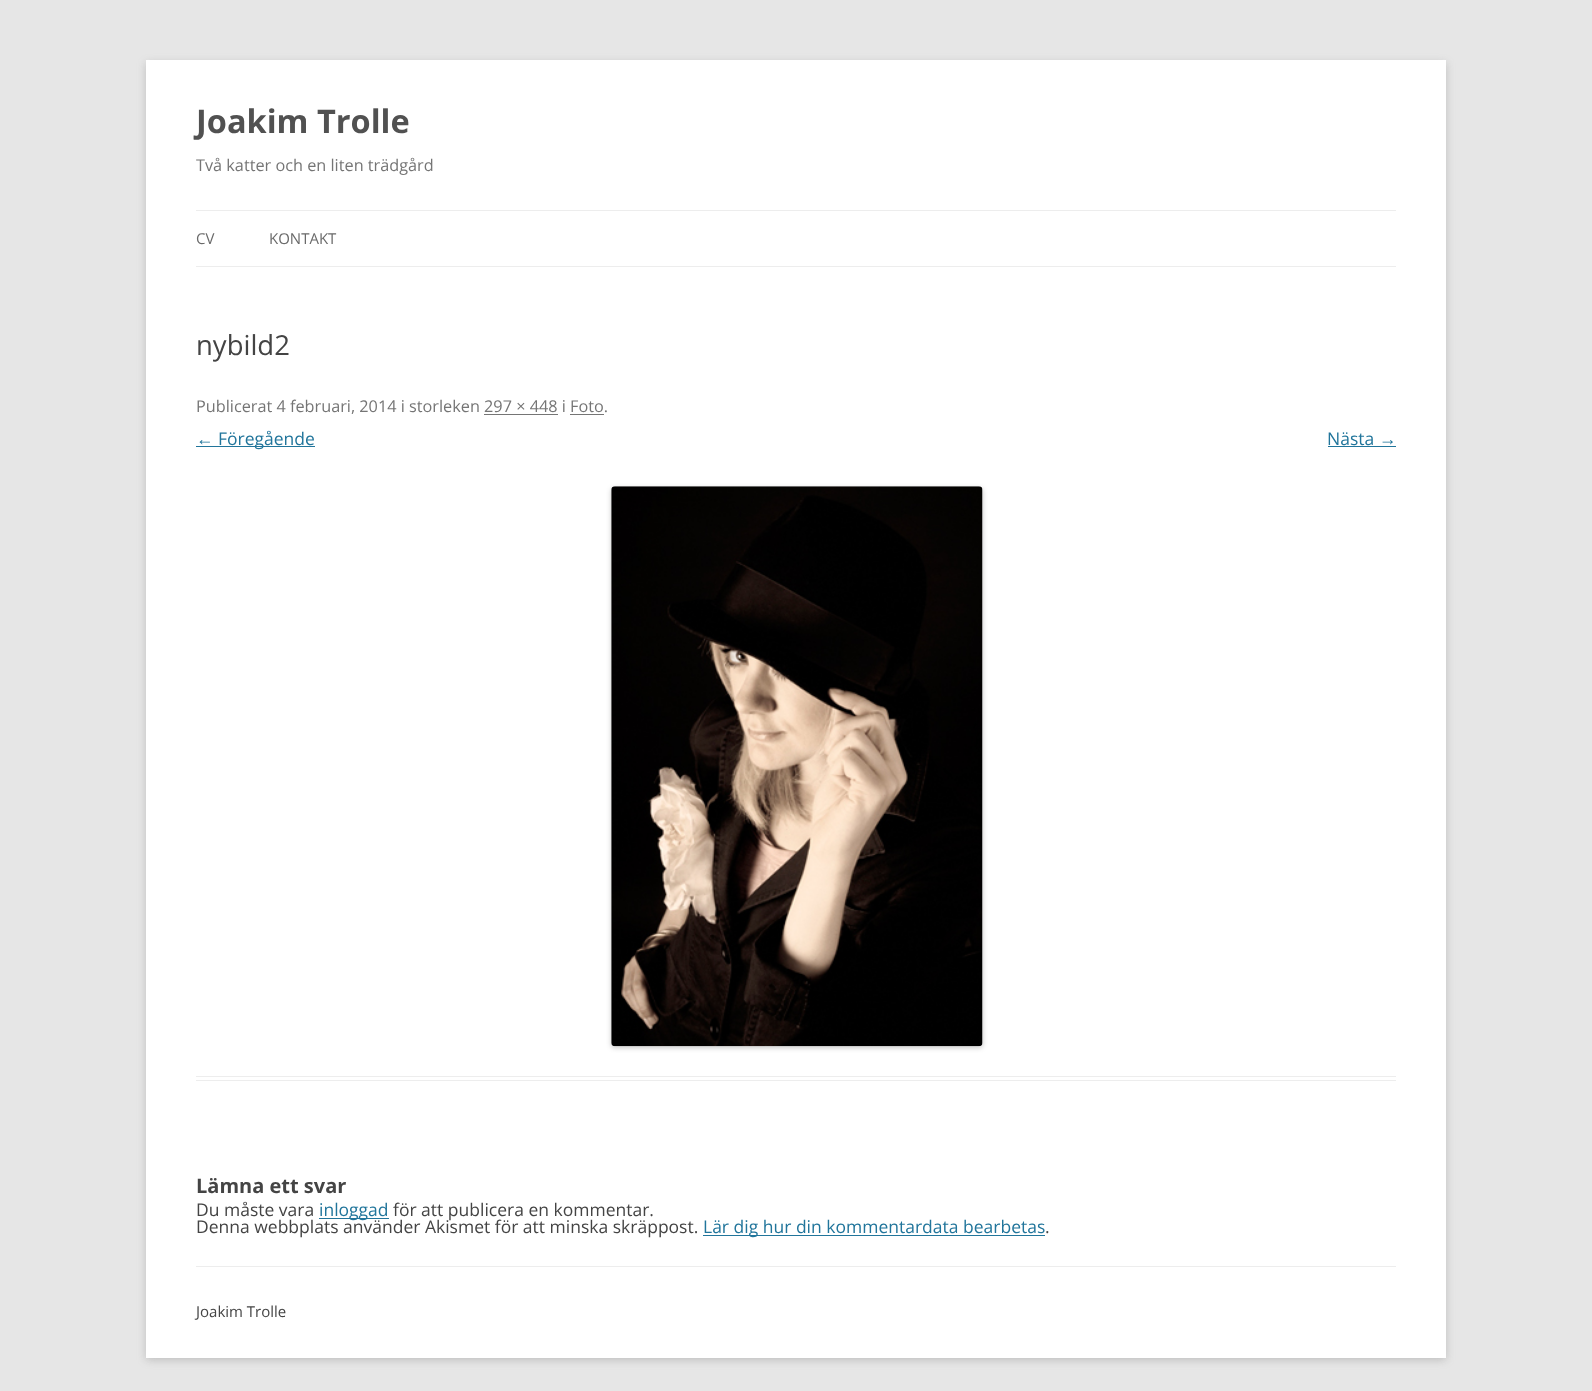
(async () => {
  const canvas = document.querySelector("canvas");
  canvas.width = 1592;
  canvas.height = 1391;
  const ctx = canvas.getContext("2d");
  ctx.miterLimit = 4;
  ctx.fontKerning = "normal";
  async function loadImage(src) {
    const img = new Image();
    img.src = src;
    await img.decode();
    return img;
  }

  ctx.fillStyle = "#e6e6e6";
  ctx.fillRect(0, 0, 1592, 1391);
  ctx.fillStyle = "rgba(100, 100, 100, 0.3)";
  ctx.filter = "blur(4px)";
  ctx.beginPath();
  ctx.rect(146, 63, 1300, 1297);
  ctx.fill();
  ctx.filter = "none";
  for (const [x, y, w, h, color] of [
    [146, 60, 1300, 1298, "#ffffff"],
    [196, 210, 1200, 1, "#ededed"],
    [196, 266, 1200, 1, "#ededed"],
    [196, 1076, 1200, 1, "#ededed"],
    [196, 1080, 1200, 1, "#ededed"],
    [484, 414, 74, 1, "#757575"],
    [570, 414, 34, 1, "#757575"],
    [196, 446, 119, 1, "#21759b"],
    [1328, 446, 68, 1, "#21759b"],
  ]) {
    ctx.fillStyle = color;
    ctx.fillRect(x, y, w, h);
  }
  ctx.fillStyle = "rgba(0, 0, 0, 0.2)";
  ctx.filter = "blur(2.5px)";
  ctx.beginPath();
  ctx.roundRect(611, 488, 372, 560, 4);
  ctx.fill();
  ctx.filter = "none";
  ctx.drawImage(await loadImage("img/1.png"), 611, 486, 372, 561);
  for (const [x, y, w, h, color] of [
    [319, 1218, 70, 1, "#21759b"],
    [703, 1235, 342, 1, "#21759b"],
    [196, 1266, 1200, 1, "#ededed"],
  ]) {
    ctx.fillStyle = color;
    ctx.fillRect(x, y, w, h);
  }
  ctx.font = "bold 32.5px Open Sans";
  ctx.fillStyle = "#515151";
  ctx.fillText("Joakim Trolle", 196, 133);
  ctx.font = "16.25px Open Sans";
  ctx.fillStyle = "#757575";
  ctx.fillText("Två katter och en liten trädgård", 196, 171);
  ctx.font = "15px Open Sans";
  ctx.fillStyle = "#6a6a6a";
  ctx.fillText("CV", 196, 244);
  ctx.fillText("KONTAKT", 269, 244);
  ctx.font = "27.5px Open Sans";
  ctx.fillStyle = "#444444";
  ctx.fillText("nybild2", 196, 355);
  ctx.font = "16.25px Open Sans";
  ctx.fillStyle = "#757575";
  ctx.fillText("Publicerat 4 februari, 2014 i storleken 297 × 448 i Foto.", 196, 412);
  ctx.font = "17.5px Liberation Sans";
  ctx.fillStyle = "#21759b";
  ctx.fillText("←", 196, 445);
  ctx.font = "17.5px Open Sans";
  ctx.fillText("Föregående", 218, 445);
  ctx.fillText("Nästa", 1327, 445);
  ctx.font = "17.5px Liberation Sans";
  ctx.fillText("→", 1379, 445);
  ctx.font = "bold 20px Open Sans";
  ctx.fillStyle = "#444444";
  ctx.fillText("Lämna ett svar", 196, 1193);
  ctx.font = "17.5px Open Sans";
  ctx.fillText("Du måste vara", 196, 1216);
  ctx.fillStyle = "#21759b";
  ctx.fillText("inloggad", 319, 1216);
  ctx.fillStyle = "#444444";
  ctx.fillText("för att publicera en kommentar.", 393, 1216);
  ctx.fillText("Denna webbplats använder Akismet för att minska skräppost.", 196, 1233);
  ctx.fillStyle = "#21759b";
  ctx.fillText("Lär dig hur din kommentardata bearbetas", 703, 1233);
  ctx.fillStyle = "#444444";
  ctx.fillText(".", 1045, 1233);
  ctx.font = "15px Open Sans";
  ctx.fillText("Joakim Trolle", 196, 1317);
})();
